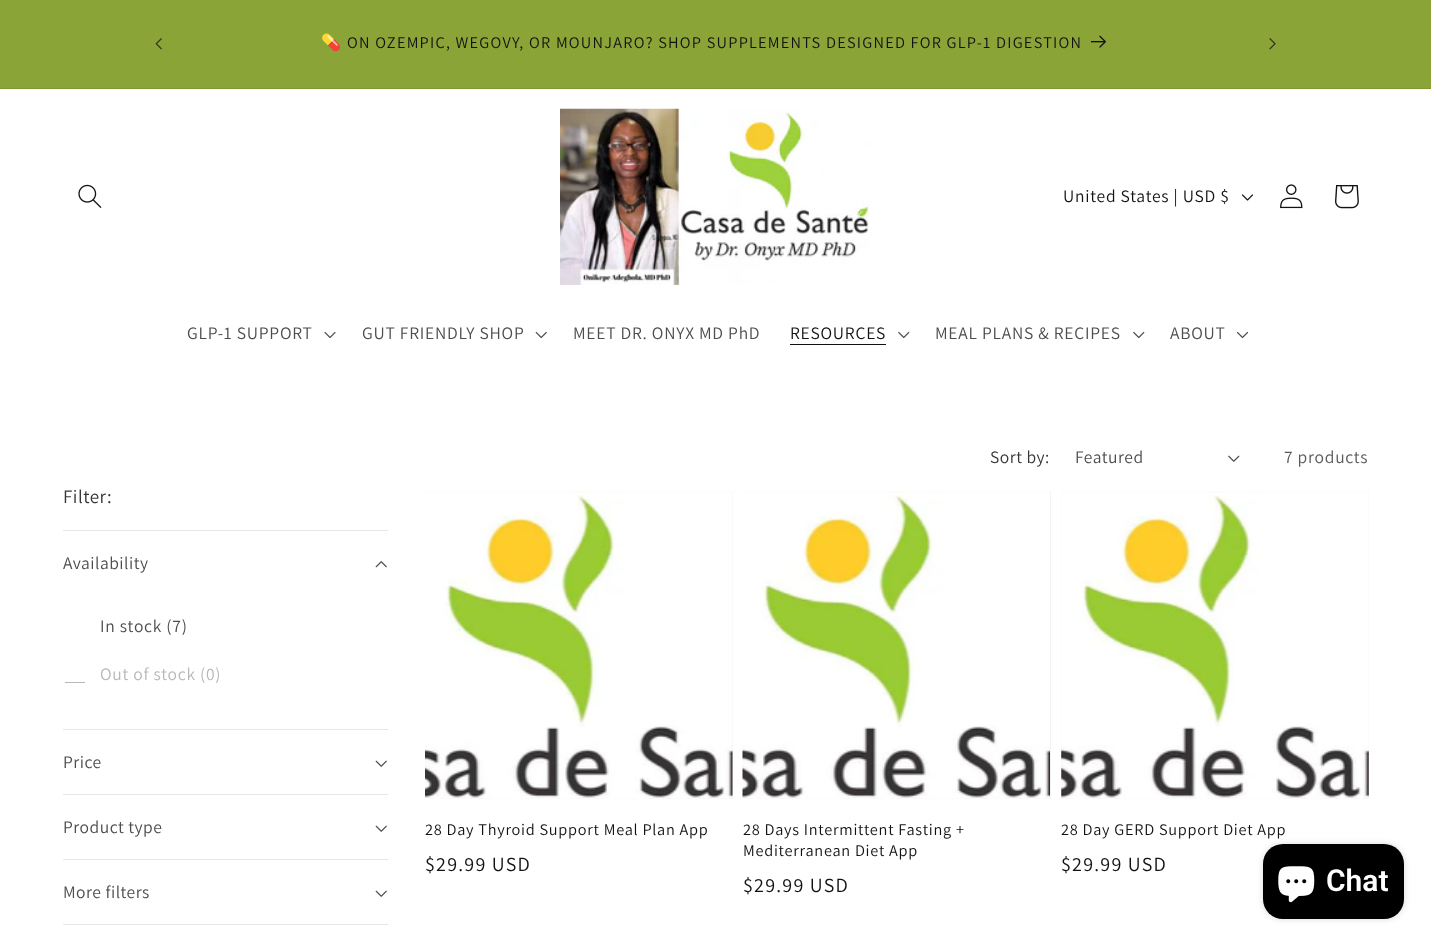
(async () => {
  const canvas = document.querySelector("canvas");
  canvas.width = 1431;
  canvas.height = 945;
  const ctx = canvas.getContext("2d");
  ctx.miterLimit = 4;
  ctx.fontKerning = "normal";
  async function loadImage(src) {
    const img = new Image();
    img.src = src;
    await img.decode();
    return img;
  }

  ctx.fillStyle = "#ffffff";
  ctx.fillRect(0, 0, 1431, 945);
  ctx.fillStyle = "#8aa437";
  ctx.fillRect(0, 0, 1431, 88);
  ctx.fillStyle = "#809834";
  ctx.fillRect(0, 88, 1431, 1);
  ctx.drawImage(await loadImage("img/1.png"), 155, 38, 7, 12);
  ctx.drawImage(await loadImage("img/2.png"), 1091, 35, 15, 13);
  ctx.drawImage(await loadImage("img/3.png"), 1269, 38, 7, 12);
  ctx.drawImage(await loadImage("img/4.png"), 78, 184, 24, 24);
  ctx.drawImage(await loadImage("img/5.png"), 560, 108, 310, 177);
  ctx.drawImage(await loadImage("img/6.png"), 1242, 194, 11, 7);
  ctx.drawImage(await loadImage("img/7.png"), 1280, 184, 23, 25);
  ctx.drawImage(await loadImage("img/8.png"), 1335, 185, 24, 24);
  ctx.drawImage(await loadImage("img/9.png"), 324, 332, 12, 6);
  ctx.drawImage(await loadImage("img/10.png"), 535, 331, 12, 8);
  ctx.fillStyle = "#131211";
  ctx.fillRect(790, 344, 96, 1);
  ctx.drawImage(await loadImage("img/11.png"), 898, 331, 12, 8);
  ctx.drawImage(await loadImage("img/11.png"), 1133, 331, 12, 8);
  ctx.drawImage(await loadImage("img/12.png"), 1236, 331, 13, 8);
  ctx.drawImage(await loadImage("img/13.png"), 1228, 455, 12, 7);
  ctx.fillStyle = "#e7e7e7";
  ctx.fillRect(63, 530, 325, 1);
  ctx.drawImage(await loadImage("img/14.png"), 375, 561, 12, 7);
  ctx.save();
  ctx.beginPath();
  ctx.rect(65, 663, 20, 20);
  ctx.clip();
  ctx.strokeStyle = "#b9b8b8";
  ctx.strokeRect(64.5, 662.5, 21, 20);
  ctx.restore();
  ctx.fillRect(63, 729, 325, 1);
  ctx.drawImage(await loadImage("img/15.png"), 375, 760, 12, 7);
  ctx.fillRect(63, 794, 325, 1);
  ctx.drawImage(await loadImage("img/15.png"), 375, 825, 12, 7);
  ctx.fillRect(63, 859, 325, 1);
  ctx.drawImage(await loadImage("img/15.png"), 375, 890, 12, 7);
  ctx.fillRect(63, 924, 325, 1);
  ctx.fillStyle = "#f3f3f3";
  ctx.fillRect(425, 491, 308, 308);
  ctx.drawImage(await loadImage("img/16.png"), 425, 491, 308, 308);
  ctx.fillRect(743, 491, 308, 308);
  ctx.drawImage(await loadImage("img/17.png"), 742, 491, 308, 308);
  ctx.fillRect(1061, 491, 308, 308);
  ctx.drawImage(await loadImage("img/18.png"), 1061, 491, 308, 308);
  ctx.fillStyle = "rgba(0, 0, 0, 0.15)";
  ctx.filter = "blur(3px)";
  ctx.beginPath();
  ctx.roundRect(1263, 844, 141, 75, 20);
  ctx.fill();
  ctx.filter = "none";
  ctx.fillStyle = "#000000";
  ctx.beginPath();
  ctx.roundRect(1263, 844, 141, 75, 20);
  ctx.fill();
  ctx.drawImage(await loadImage("img/19.png"), 1278, 866, 37, 37);
  ctx.letterSpacing = "1.25px";
  ctx.font = "16.25px Noto Color Emoji";
  ctx.fillStyle = "#131211";
  ctx.fillText("💊", 321, 48);
  ctx.font = "16.25px Assistant";
  ctx.fillText("ON OZEMPIC, WEGOVY, OR MOUNJARO? SHOP SUPPLEMENTS DESIGNED FOR GLP-1 DIGESTION", 347, 48);
  ctx.letterSpacing = "0.75px";
  ctx.font = "17.5px Assistant";
  ctx.fillText("United States | USD $", 1063, 202);
  ctx.fillStyle = "#4e4d4d";
  for (const [text, x, y] of [
    ["GLP-1 SUPPORT", 187, 339],
    ["GUT FRIENDLY SHOP", 362, 339],
    ["MEET DR. ONYX MD PhD", 573, 339],
  ]) {
    ctx.fillText(text, x, y);
  }
  ctx.fillStyle = "#131211";
  ctx.fillText("RESOURCES", 790, 339);
  ctx.fillStyle = "#4e4d4d";
  ctx.fillText("MEAL PLANS & RECIPES", 935, 339);
  ctx.fillText("ABOUT", 1170, 339);
  ctx.letterSpacing = "0.5px";
  ctx.fillStyle = "#363635";
  ctx.fillText("Sort by:", 990, 463);
  ctx.fillStyle = "#4e4d4d";
  ctx.fillText("Featured", 1075, 463);
  ctx.letterSpacing = "0.75px";
  ctx.fillStyle = "#5a5958";
  ctx.fillText("7 products", 1284, 463);
  ctx.letterSpacing = "0.5px";
  ctx.font = "19px Assistant";
  ctx.fillStyle = "#363635";
  ctx.fillText("Filter:", 63, 503);
  ctx.font = "17.5px Assistant";
  ctx.fillStyle = "#4e4d4d";
  ctx.fillText("Availability", 63, 569);
  ctx.letterSpacing = "0.75px";
  ctx.fillText("In stock (7)", 100, 632);
  ctx.fillStyle = "#b9b8b8";
  ctx.fillText("Out of stock (0)", 100, 680);
  ctx.letterSpacing = "0.5px";
  ctx.fillStyle = "#4e4d4d";
  for (const [text, x, y] of [
    ["Price", 63, 768],
    ["Product type", 63, 833],
    ["More filters", 63, 898],
  ]) {
    ctx.fillText(text, x, y);
  }
  ctx.letterSpacing = "0.75px";
  ctx.font = "16.25px Assistant";
  ctx.fillStyle = "#131211";
  ctx.fillText("28 Day Thyroid Support Meal Plan App", 425, 835);
  ctx.letterSpacing = "1.25px";
  ctx.font = "20px Assistant";
  ctx.fillText("$29.99 USD", 425, 871);
  ctx.letterSpacing = "0.75px";
  ctx.font = "16.25px Assistant";
  ctx.fillText("28 Days Intermittent Fasting +", 743, 835);
  ctx.fillText("Mediterranean Diet App", 743, 856);
  ctx.letterSpacing = "1.25px";
  ctx.font = "20px Assistant";
  ctx.fillText("$29.99 USD", 743, 892);
  ctx.letterSpacing = "0.75px";
  ctx.font = "16.25px Assistant";
  ctx.fillText("28 Day GERD Support Diet App", 1061, 835);
  ctx.letterSpacing = "1.25px";
  ctx.font = "20px Assistant";
  ctx.fillText("$29.99 USD", 1061, 871);
  ctx.letterSpacing = "0px";
  ctx.font = "600 30px Roboto";
  ctx.fillStyle = "#ffffff";
  ctx.fillText("Chat", 1326, 891);
})();
